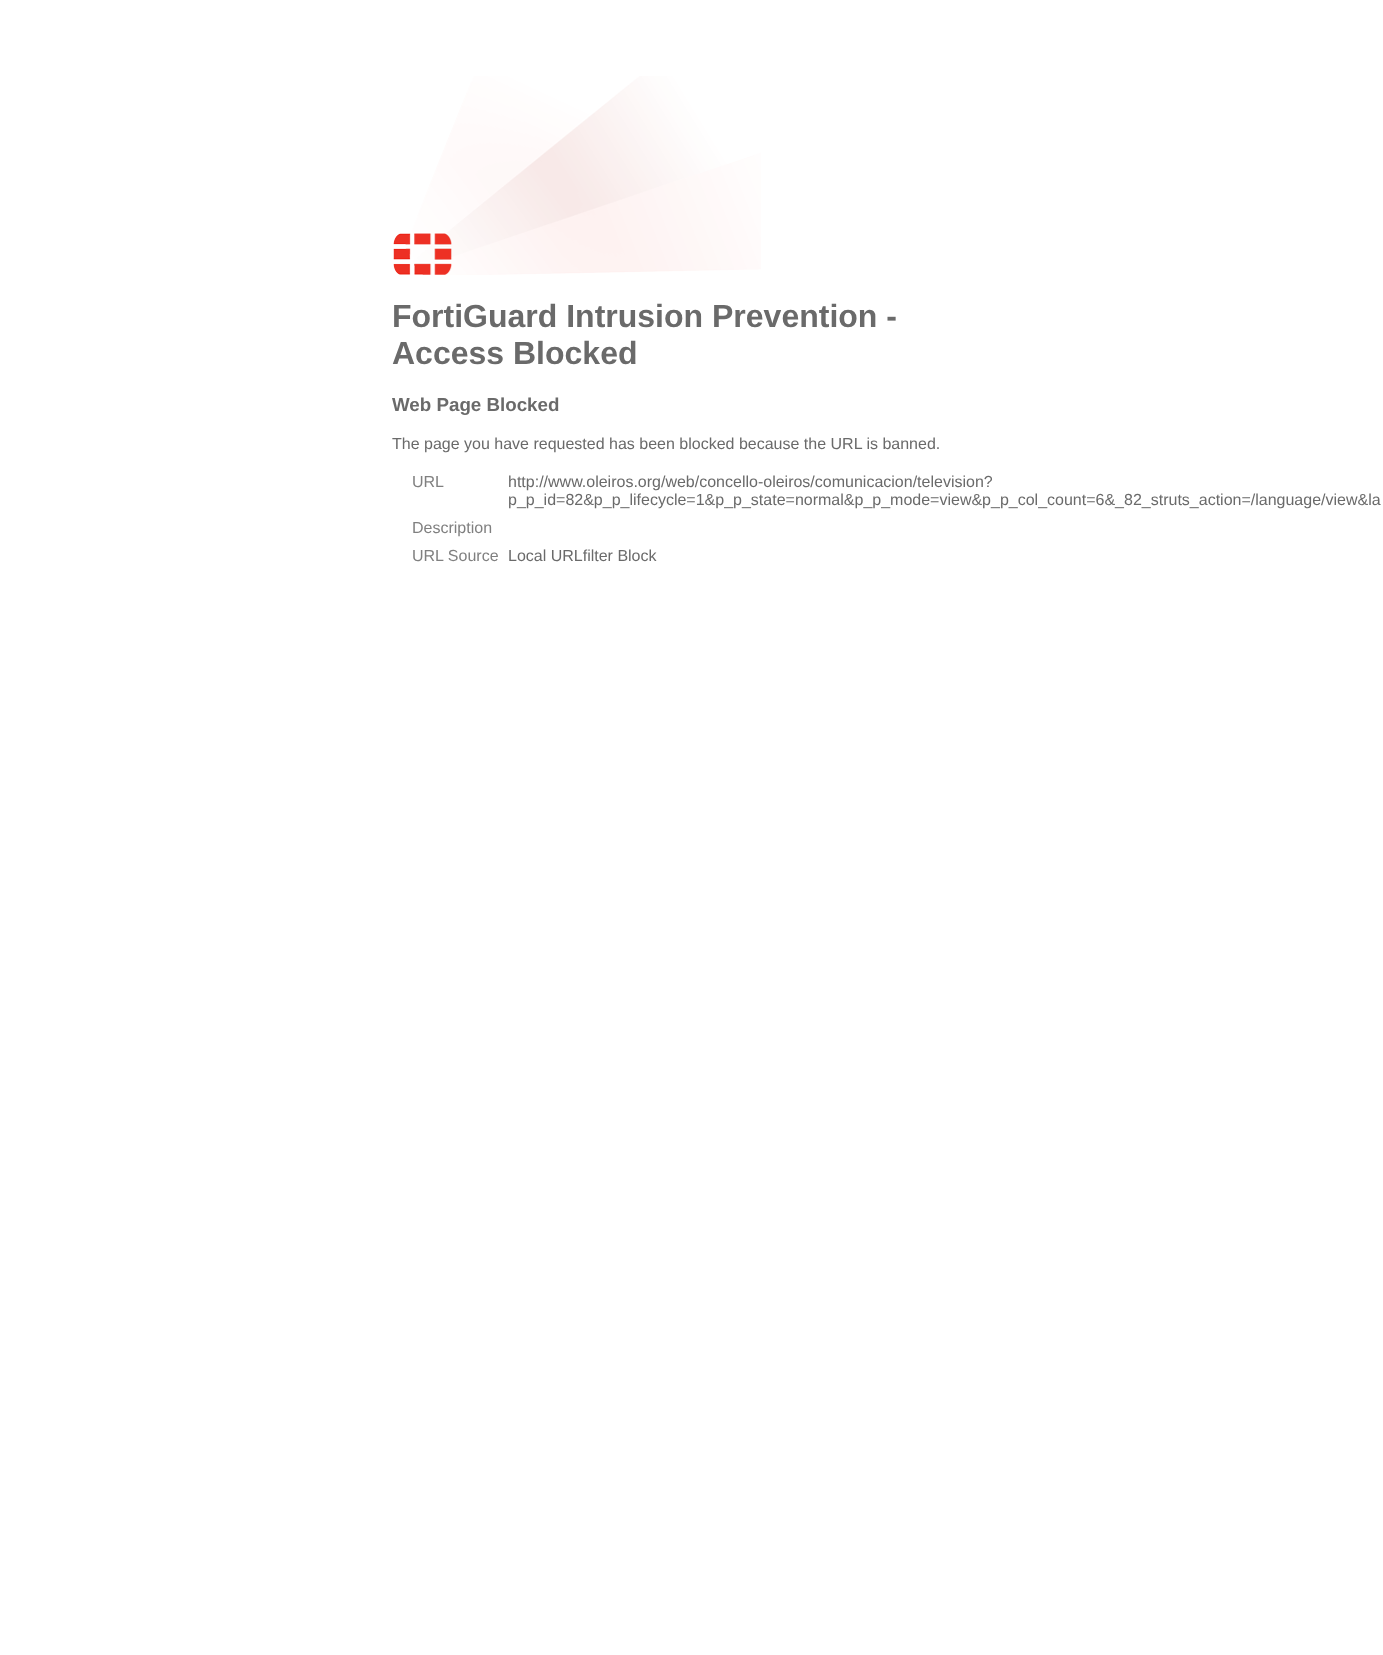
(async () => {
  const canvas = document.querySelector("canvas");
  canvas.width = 1383;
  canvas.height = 1655;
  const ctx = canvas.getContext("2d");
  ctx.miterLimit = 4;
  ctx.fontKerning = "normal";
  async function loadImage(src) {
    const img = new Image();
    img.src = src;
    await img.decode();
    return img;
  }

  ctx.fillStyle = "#ffffff";
  ctx.fillRect(0, 0, 1383, 1655);
  ctx.drawImage(await loadImage("img/1.png"), 393, 76, 368, 199);
  ctx.font = "bold 32px Liberation Sans";
  ctx.fillStyle = "#6a6a6a";
  ctx.fillText("FortiGuard Intrusion Prevention -", 392, 327);
  ctx.fillText("Access Blocked", 392, 364);
  ctx.font = "bold 18.75px Liberation Sans";
  ctx.fillText("Web Page Blocked", 392, 411);
  ctx.font = "16px Liberation Sans";
  ctx.fillText("The page you have requested has been blocked because the URL is banned.", 392, 449);
  ctx.fillStyle = "#808080";
  ctx.fillText("URL", 412, 487);
  ctx.fillStyle = "#6a6a6a";
  ctx.fillText("http://www.oleiros.org/web/concello-oleiros/comunicacion/television?", 508, 487);
  ctx.fillText("p_p_id=82&p_p_lifecycle=1&p_p_state=normal&p_p_mode=view&p_p_col_count=6&_82_struts_action=/language/view&la", 508, 505);
  ctx.fillStyle = "#808080";
  ctx.fillText("Description", 412, 533);
  ctx.fillText("URL Source", 412, 561);
  ctx.fillStyle = "#6a6a6a";
  ctx.fillText("Local URLfilter Block", 508, 561);
})();
